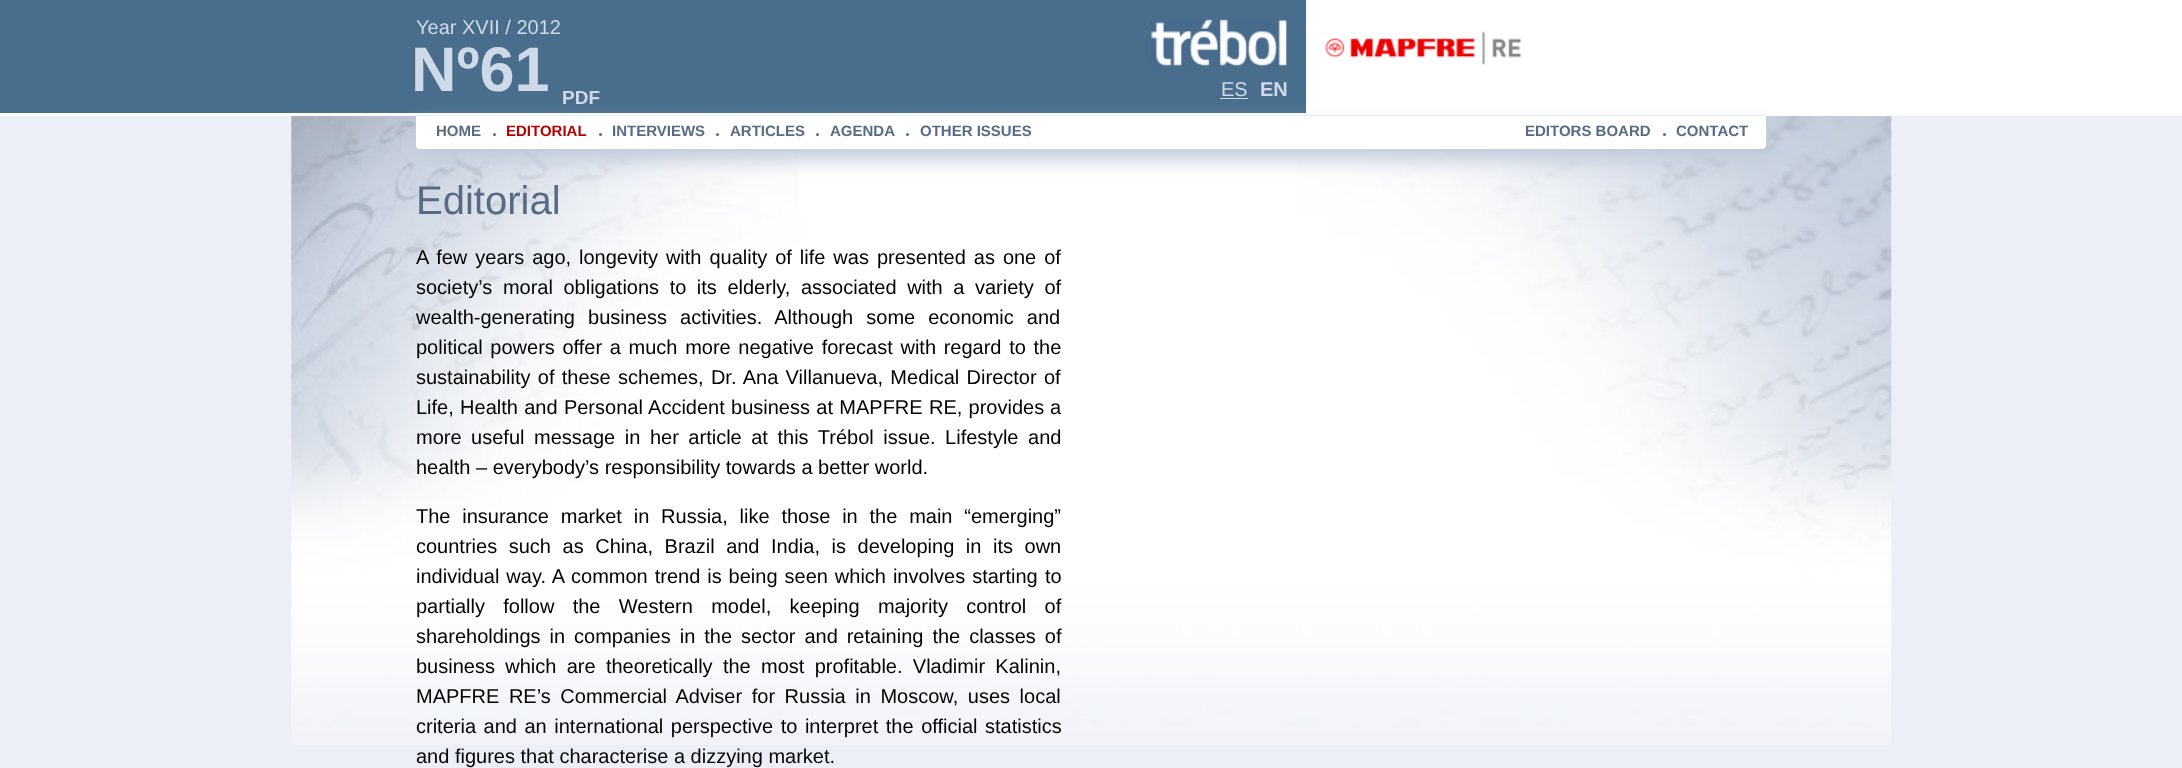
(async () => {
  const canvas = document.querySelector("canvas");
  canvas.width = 2182;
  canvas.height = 768;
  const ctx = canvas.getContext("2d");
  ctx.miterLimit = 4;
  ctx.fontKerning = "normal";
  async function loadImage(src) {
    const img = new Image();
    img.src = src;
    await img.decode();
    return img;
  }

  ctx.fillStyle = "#eceff7";
  ctx.fillRect(0, 0, 2182, 768);
  ctx.drawImage(await loadImage("img/1.png"), 291, 116, 1601, 629);
  ctx.fillStyle = "#496e8d";
  ctx.fillRect(0, 0, 1306, 113);
  ctx.drawImage(await loadImage("img/2.png"), 1523, 0, 659, 113);
  ctx.fillStyle = "#ffffff";
  ctx.fillRect(0, 113, 2182, 3);
  ctx.drawImage(await loadImage("img/3.png"), 1150, 19, 137, 48);
  ctx.fillStyle = "#cfd9e8";
  ctx.fillRect(1220, 98, 28, 1);
  ctx.fillStyle = "#ffffff";
  ctx.fillRect(1306, 0, 217, 113);
  ctx.drawImage(await loadImage("img/4.png"), 1325, 31, 197, 34);
  ctx.fillStyle = "#c1cbdb";
  ctx.filter = "blur(9.5px)";
  ctx.beginPath();
  ctx.roundRect(416, 126, 1350, 34, 4);
  ctx.fill();
  ctx.filter = "none";
  ctx.fillStyle = "#ffffff";
  ctx.beginPath();
  ctx.roundRect(416, 115, 1350, 34, [0, 0, 4, 4]);
  ctx.fill();
  ctx.fillStyle = "#e7ecf2";
  ctx.fillRect(416, 115, 1350, 1);
  ctx.fillStyle = "#576b84";
  ctx.beginPath();
  ctx.arc(494.5, 134.5, 1.5, 0, Math.PI * 2);
  ctx.fill();
  ctx.beginPath();
  ctx.arc(600.5, 134.5, 1.5, 0, Math.PI * 2);
  ctx.fill();
  ctx.beginPath();
  ctx.arc(717.5, 134.5, 1.5, 0, Math.PI * 2);
  ctx.fill();
  ctx.beginPath();
  ctx.arc(817.5, 134.5, 1.5, 0, Math.PI * 2);
  ctx.fill();
  ctx.beginPath();
  ctx.arc(907.5, 134.5, 1.5, 0, Math.PI * 2);
  ctx.fill();
  ctx.beginPath();
  ctx.arc(1664.5, 134.5, 1.5, 0, Math.PI * 2);
  ctx.fill();
  ctx.font = "20px Liberation Sans";
  ctx.fillStyle = "#cfd9e8";
  ctx.fillText("Year XVII / 2012", 416, 34);
  ctx.font = "bold 63px Liberation Sans";
  ctx.fillText("Nº61", 411, 91);
  ctx.font = "bold 19px Liberation Sans";
  ctx.fillText("PDF", 562, 104);
  ctx.font = "20px Liberation Sans";
  ctx.fillText("ES", 1221, 96);
  ctx.font = "bold 20px Liberation Sans";
  ctx.fillText("EN", 1260, 96);
  ctx.font = "bold 15px Liberation Sans";
  ctx.fillStyle = "#576b84";
  ctx.fillText("HOME", 436, 136);
  ctx.fillStyle = "#b90000";
  ctx.fillText("EDITORIAL", 506, 136);
  ctx.fillStyle = "#576b84";
  for (const [text, x, y] of [
    ["INTERVIEWS", 612, 136],
    ["ARTICLES", 730, 136],
    ["AGENDA", 830, 136],
    ["OTHER ISSUES", 920, 136],
    ["EDITORS BOARD", 1525, 136],
    ["CONTACT", 1676, 136],
  ]) {
    ctx.fillText(text, x, y);
  }
  ctx.font = "40px Liberation Sans";
  ctx.fillText("Editorial", 416, 214);
  ctx.wordSpacing = "2.4px";
  ctx.font = "20px Liberation Sans";
  ctx.fillStyle = "#000000";
  ctx.fillText("A few years ago, longevity with quality of life was presented as one of", 416, 264);
  ctx.wordSpacing = "5px";
  ctx.fillText("society’s moral obligations to its elderly, associated with a variety of", 416, 294);
  ctx.wordSpacing = "7.5px";
  ctx.fillText("wealth-generating business activities. Although some economic and", 416, 324);
  ctx.wordSpacing = "2.1px";
  ctx.fillText("political powers offer a much more negative forecast with regard to the", 416, 354);
  ctx.wordSpacing = "1.75px";
  ctx.fillText("sustainability of these schemes, Dr. Ana Villanueva, Medical Director of", 416, 384);
  ctx.wordSpacing = "0.75px";
  ctx.fillText("Life, Health and Personal Accident business at MAPFRE RE, provides", 416, 414);
  ctx.wordSpacing = "0px";
  ctx.fillText("a", 1050, 414);
  ctx.wordSpacing = "4px";
  ctx.fillText("more useful message in her article at this Trébol issue. Lifestyle and", 416, 444);
  ctx.wordSpacing = "0px";
  ctx.fillText("health – everybody’s responsibility towards a better world.", 416, 474);
  ctx.wordSpacing = "6.25px";
  ctx.fillText("The insurance market in Russia, like those in the main “emerging”", 416, 523);
  ctx.wordSpacing = "6px";
  ctx.fillText("countries such as China, Brazil and India, is developing in its own", 416, 553);
  ctx.wordSpacing = "1.4px";
  ctx.fillText("individual way. A common trend is being seen which involves starting", 416, 583);
  ctx.wordSpacing = "0px";
  ctx.fillText("to", 1045, 583);
  ctx.wordSpacing = "12.75px";
  ctx.fillText("partially follow the Western model, keeping majority control of", 416, 613);
  ctx.wordSpacing = "3.4px";
  ctx.fillText("shareholdings in companies in the sector and retaining the classes of", 416, 643);
  ctx.wordSpacing = "4.75px";
  ctx.fillText("business which are theoretically the most profitable. Vladimir Kalinin,", 416, 673);
  ctx.wordSpacing = "4px";
  ctx.fillText("MAPFRE RE’s Commercial Adviser for Russia in Moscow, uses local", 416, 703);
  ctx.wordSpacing = "2px";
  ctx.fillText("criteria and an international perspective to interpret the official", 416, 733);
  ctx.wordSpacing = "0px";
  ctx.fillText("statistics", 985, 733);
  ctx.fillText("and figures that characterise a dizzying market.", 416, 763);
})();
